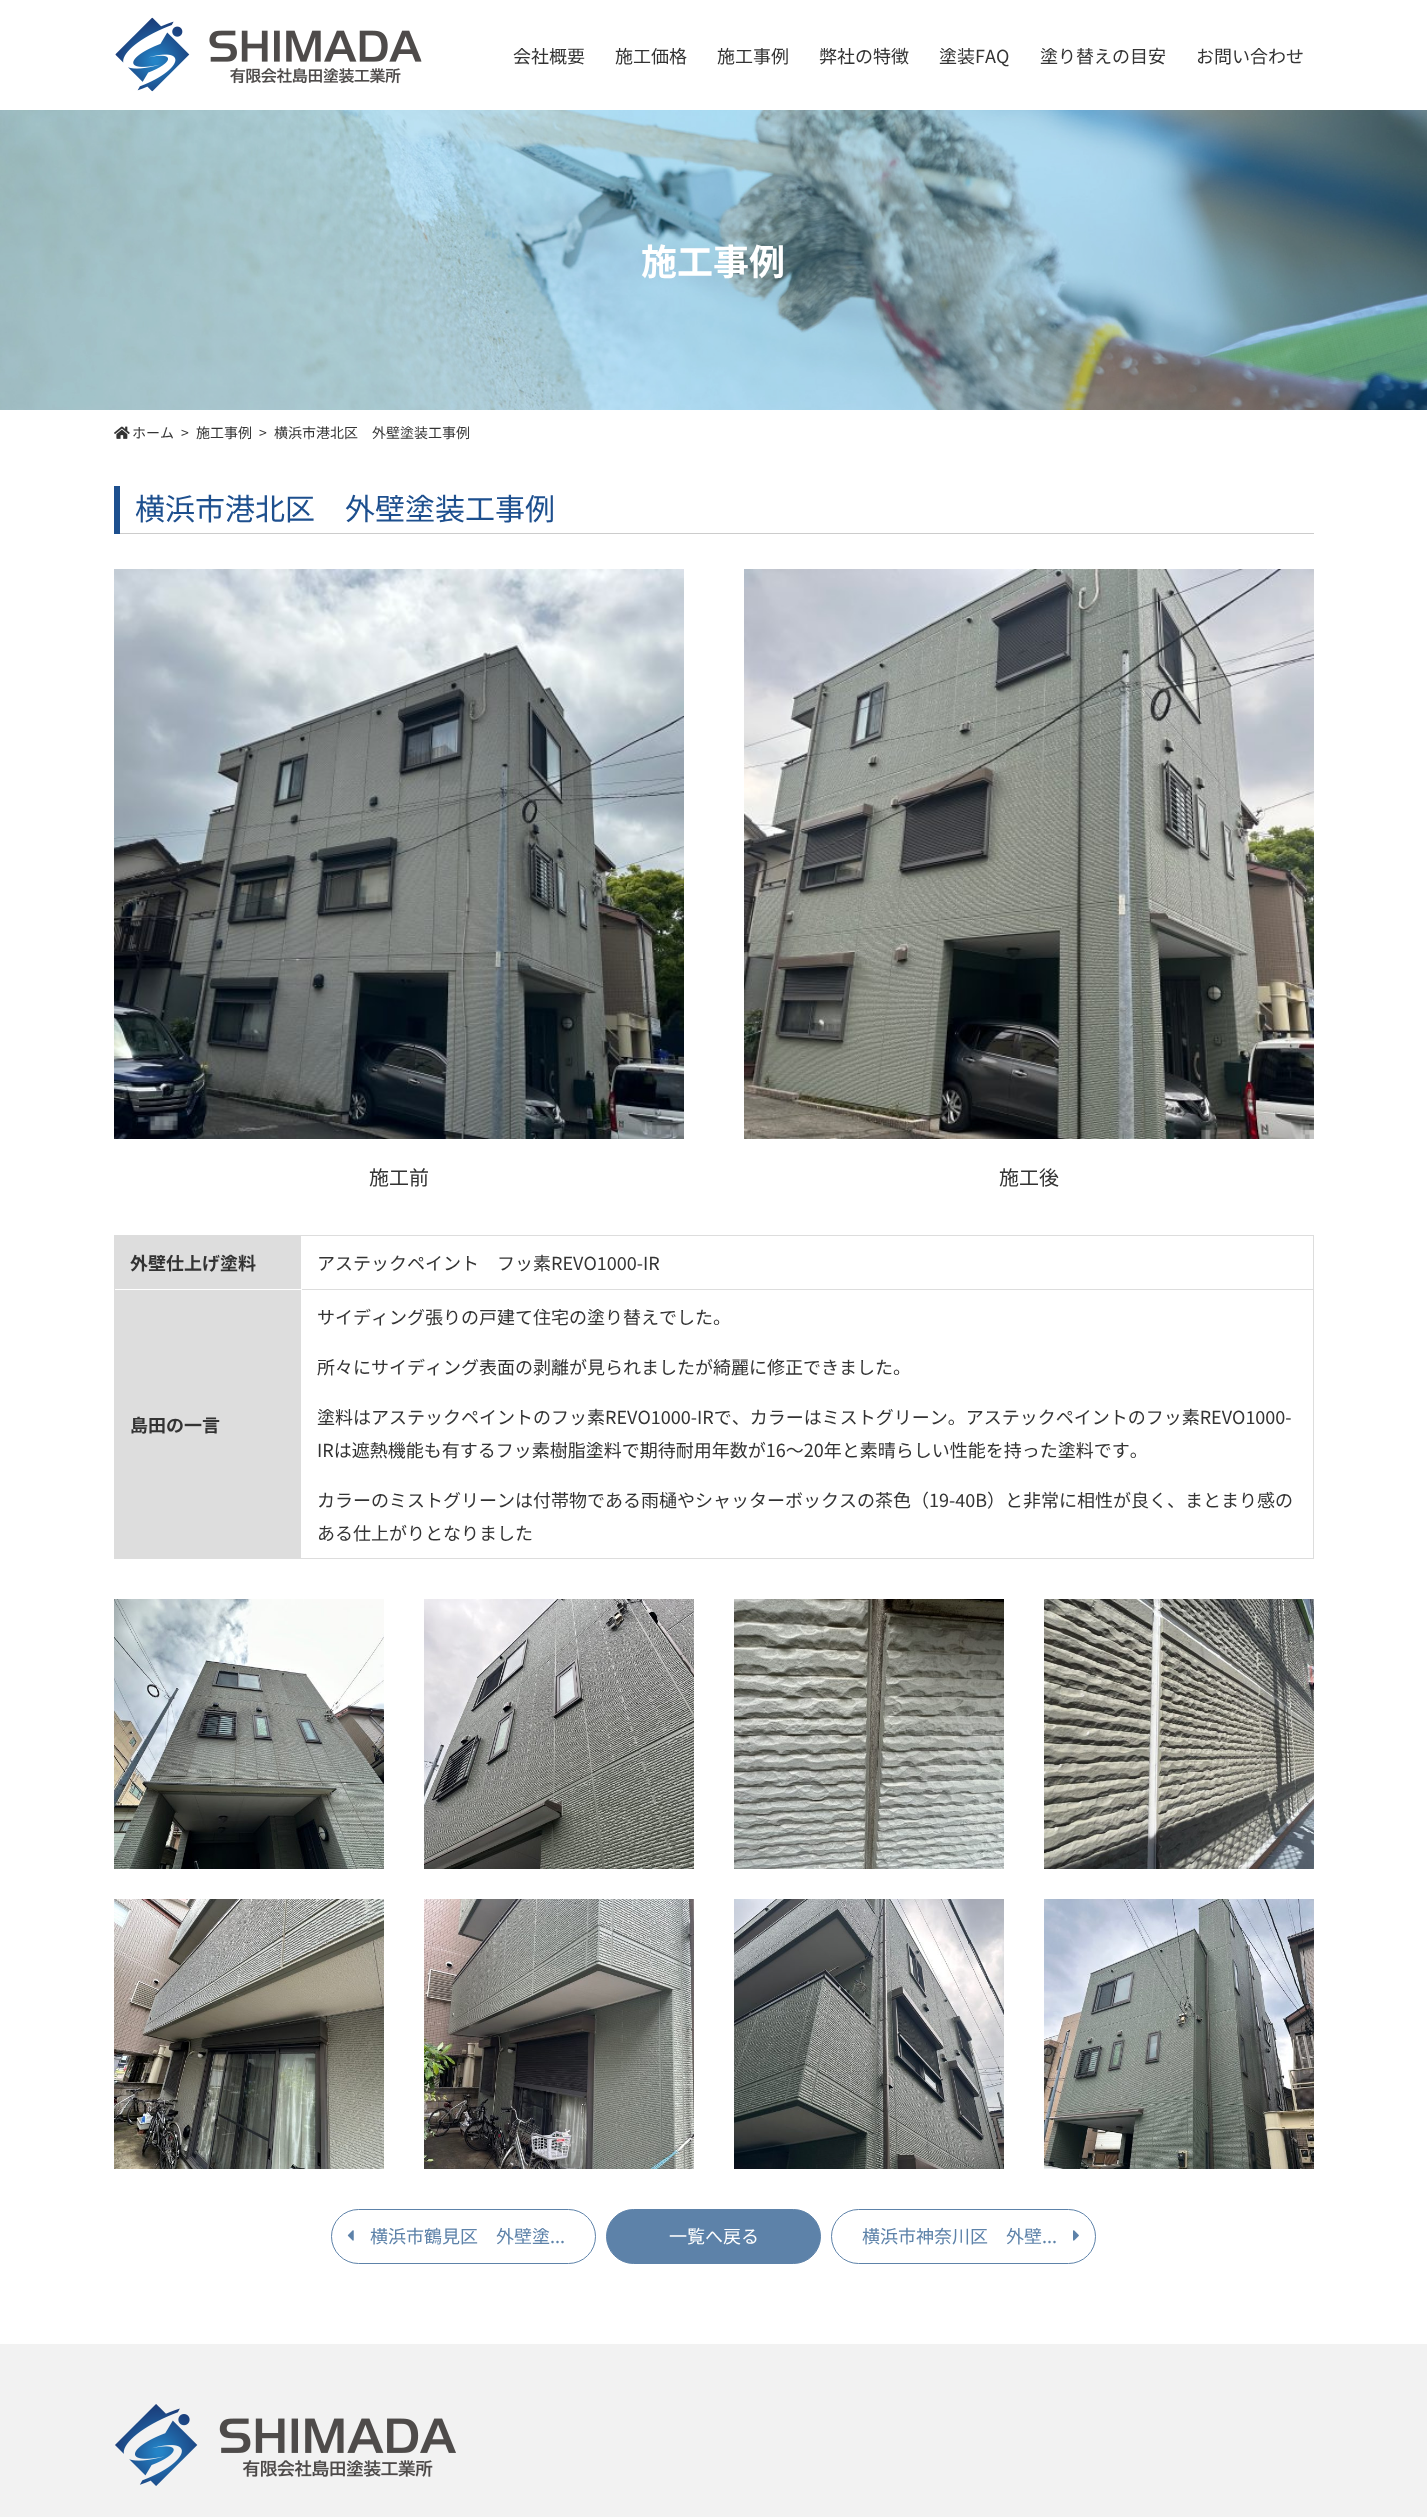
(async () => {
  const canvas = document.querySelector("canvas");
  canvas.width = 1427;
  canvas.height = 2517;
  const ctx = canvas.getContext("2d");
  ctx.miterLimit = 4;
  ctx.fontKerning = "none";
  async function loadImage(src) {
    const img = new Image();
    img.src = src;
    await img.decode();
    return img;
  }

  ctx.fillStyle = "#ffffff";
  ctx.fillRect(0, 0, 1427, 2517);
  ctx.drawImage(await loadImage("img/1.png"), 115, 17, 307, 75);
  ctx.drawImage(await loadImage("img/2.png"), 0, 110, 1427, 300);
  ctx.drawImage(await loadImage("img/3.png"), 114, 426, 16, 13);
  ctx.fillStyle = "#1d4f8e";
  ctx.fillRect(114, 486, 6, 48);
  ctx.fillStyle = "#cccccc";
  ctx.fillRect(120, 533, 1194, 1);
  ctx.drawImage(await loadImage("img/4.png"), 114, 569, 570, 570);
  ctx.drawImage(await loadImage("img/5.png"), 744, 569, 570, 570);
  ctx.strokeStyle = "#dddddd";
  ctx.strokeRect(114.5, 1235.5, 1199, 323);
  for (const [x, y, w, h, color] of [
    [115, 1236, 186, 53, "#dddddd"],
    [302, 1289, 1011, 1, "#dddddd"],
    [115, 1290, 186, 268, "#dddddd"],
  ]) {
    ctx.fillStyle = color;
    ctx.fillRect(x, y, w, h);
  }
  ctx.drawImage(await loadImage("img/6.png"), 114, 1599, 270, 270);
  ctx.drawImage(await loadImage("img/7.png"), 424, 1599, 270, 270);
  ctx.drawImage(await loadImage("img/8.png"), 734, 1599, 270, 270);
  ctx.drawImage(await loadImage("img/9.png"), 1044, 1599, 270, 270);
  ctx.drawImage(await loadImage("img/10.png"), 114, 1899, 270, 270);
  ctx.drawImage(await loadImage("img/11.png"), 424, 1899, 270, 270);
  ctx.drawImage(await loadImage("img/12.png"), 734, 1899, 270, 270);
  ctx.drawImage(await loadImage("img/13.png"), 1044, 1899, 270, 270);
  ctx.beginPath();
  ctx.roundRect(331.5, 2209.5, 264, 54, 27);
  ctx.strokeStyle = "#5d82a9";
  ctx.stroke();
  ctx.drawImage(await loadImage("img/14.png"), 347, 2230, 7, 11);
  ctx.fillStyle = "#5d82a9";
  ctx.beginPath();
  ctx.roundRect(606.5, 2209.5, 214, 54, 27);
  ctx.fill();
  ctx.stroke();
  ctx.beginPath();
  ctx.roundRect(831.5, 2209.5, 264, 54, 27);
  ctx.stroke();
  ctx.drawImage(await loadImage("img/15.png"), 1073, 2230, 6, 11);
  ctx.fillStyle = "#f2f2f2";
  ctx.fillRect(0, 2344, 1427, 173);
  ctx.drawImage(await loadImage("img/16.png"), 115, 2404, 341, 82);
  ctx.font = "18px Noto Sans JP";
  ctx.fillStyle = "#333333";
  for (const [text, x, y] of [
    ["会社概要", 513, 63],
    ["施工価格", 615, 63],
    ["施工事例", 717, 63],
    ["弊社の特徴", 819, 63],
    ["塗装FAQ", 939, 63],
    ["塗り替えの目安", 1040, 63],
    ["お問い合わせ", 1196, 63],
  ]) {
    ctx.fillText(text, x, y);
  }
  ctx.font = "bold 36px Noto Sans JP";
  ctx.fillStyle = "#ffffff";
  ctx.fillText("施工事例", 641, 275);
  ctx.font = "14px Noto Sans JP";
  ctx.fillStyle = "#333333";
  for (const [text, x, y] of [
    ["ホーム", 132, 438],
    [">", 181, 438],
    ["施工事例", 196, 438],
    [">", 259, 438],
    ["横浜市港北区　外壁塗装工事例", 274, 438],
  ]) {
    ctx.fillText(text, x, y);
  }
  ctx.font = "30px Noto Sans JP";
  ctx.fillStyle = "#1d4f8e";
  ctx.fillText("横浜市港北区　外壁塗装工事例", 135, 520);
  ctx.font = "20px Noto Sans JP";
  ctx.fillStyle = "#333333";
  ctx.fillText("施工前", 369, 1185);
  ctx.fillText("施工後", 999, 1185);
  ctx.font = "bold 18px Noto Sans JP";
  ctx.fillText("外壁仕上げ塗料", 130, 1270);
  ctx.font = "18px Noto Sans JP";
  ctx.fillText("アステックペイント　フッ素REVO1000-IR", 317, 1270);
  ctx.font = "bold 18px Noto Sans JP";
  ctx.fillText("島田の一言", 130, 1432);
  ctx.font = "18px Noto Sans JP";
  for (const [text, x, y] of [
    ["サイディング張りの戸建て住宅の塗り替えでした。", 317, 1324],
    ["所々にサイディング表面の剥離が見られましたが綺麗に修正できました。", 317, 1374],
    ["塗料はアステックペイントのフッ素REVO1000-IRで、カラーはミストグリーン。アステックペイントのフッ素REVO1000-", 317, 1424],
    ["IRは遮熱機能も有するフッ素樹脂塗料で期待耐用年数が16〜20年と素晴らしい性能を持った塗料です。", 317, 1457],
    ["カラーのミストグリーンは付帯物である雨樋やシャッターボックスの茶色（19-40B）と非常に相性が良く、まとまり感の", 317, 1507],
    ["ある仕上がりとなりました", 317, 1540],
  ]) {
    ctx.fillText(text, x, y);
  }
  ctx.fillStyle = "#5d82a9";
  ctx.fillText("横浜市鶴見区　外壁塗...", 370, 2243);
  ctx.fillStyle = "#ffffff";
  ctx.fillText("一覧へ戻る", 669, 2243);
  ctx.fillStyle = "#5d82a9";
  ctx.fillText("横浜市神奈川区　外壁...", 862, 2243);
})();
